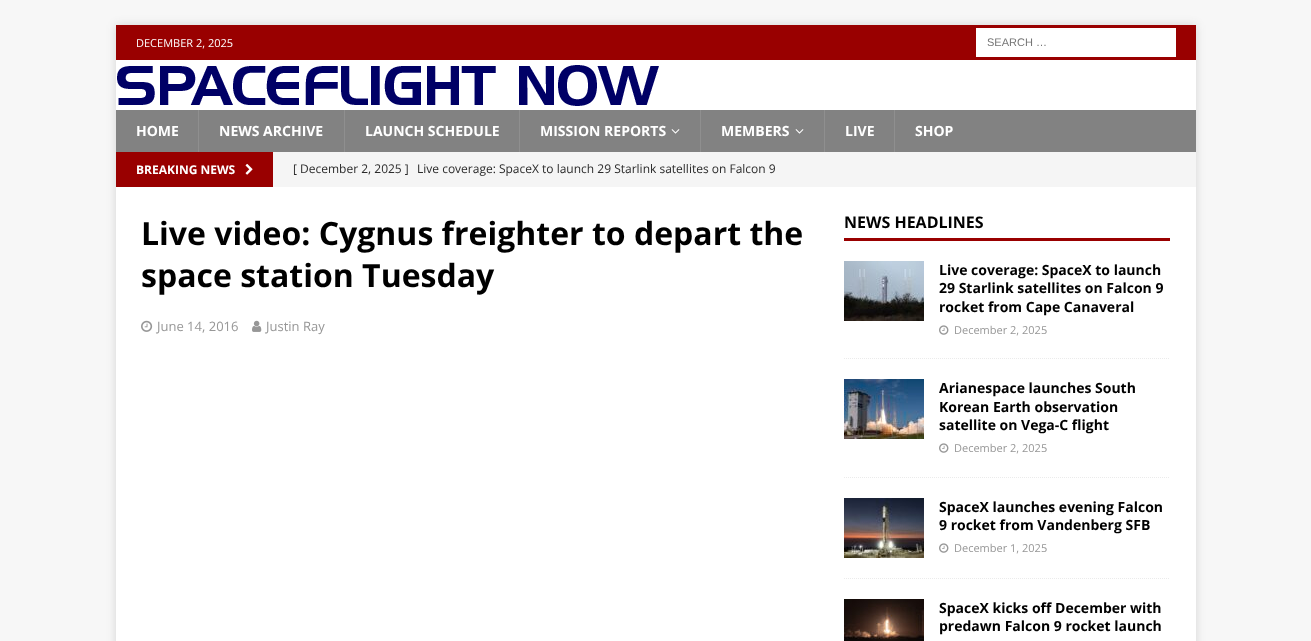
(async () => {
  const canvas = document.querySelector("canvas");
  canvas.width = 1311;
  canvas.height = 641;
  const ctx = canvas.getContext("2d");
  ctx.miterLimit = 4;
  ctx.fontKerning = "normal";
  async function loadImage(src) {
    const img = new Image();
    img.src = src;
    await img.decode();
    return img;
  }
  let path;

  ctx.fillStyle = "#f7f7f7";
  ctx.fillRect(0, 0, 1311, 641);
  ctx.fillStyle = "rgba(50, 50, 50, 0.17)";
  ctx.filter = "blur(5px)";
  ctx.beginPath();
  ctx.rect(116, 25, 1080, 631);
  ctx.fill();
  ctx.filter = "none";
  for (const [x, y, w, h, color] of [
    [116, 25, 1080, 35, "#990000"],
    [976, 28, 200, 29, "#ffffff"],
    [116, 60, 1080, 50, "#ffffff"],
  ]) {
    ctx.fillStyle = color;
    ctx.fillRect(x, y, w, h);
  }
  ctx.drawImage(await loadImage("img/1.png"), 117, 65, 542, 41);
  for (const [x, y, w, h, color] of [
    [116, 110, 1080, 42, "#828282"],
    [198, 110, 1, 42, "#8f8f8f"],
    [344, 110, 1, 42, "#8f8f8f"],
    [519, 110, 1, 42, "#8f8f8f"],
  ]) {
    ctx.fillStyle = color;
    ctx.fillRect(x, y, w, h);
  }
  ctx.drawImage(await loadImage("img/2.png"), 671, 129, 9, 5);
  ctx.fillRect(700, 110, 1, 42);
  ctx.drawImage(await loadImage("img/2.png"), 795, 129, 9, 5);
  for (const [x, y, w, h, color] of [
    [824, 110, 1, 42, "#8f8f8f"],
    [894, 110, 1, 42, "#8f8f8f"],
    [273, 152, 923, 35, "#f5f5f5"],
    [116, 152, 157, 35, "#990000"],
  ]) {
    ctx.fillStyle = color;
    ctx.fillRect(x, y, w, h);
  }
  ctx.drawImage(await loadImage("img/3.png"), 245, 163, 8, 12);
  ctx.fillStyle = "#ffffff";
  ctx.fillRect(116, 187, 1080, 454);
  ctx.drawImage(await loadImage("img/4.png"), 141, 320, 12, 12);
  ctx.drawImage(await loadImage("img/5.png"), 252, 320, 10, 12);
  ctx.fillStyle = "#990000";
  ctx.fillRect(844, 238, 326, 3);
  path = new Path2D("M844 358.5H1170");
  ctx.strokeStyle = "#ebebeb";
  ctx.setLineDash([1, 1]);
  ctx.stroke(path);
  ctx.drawImage(await loadImage("img/6.png"), 844, 261, 80, 60);
  ctx.drawImage(await loadImage("img/7.png"), 939, 325, 10, 10);
  path = new Path2D("M844 477.5H1170");
  ctx.stroke(path);
  ctx.drawImage(await loadImage("img/8.png"), 844, 379, 80, 60);
  ctx.drawImage(await loadImage("img/7.png"), 939, 443, 10, 10);
  path = new Path2D("M844 578.5H1170");
  ctx.stroke(path);
  ctx.drawImage(await loadImage("img/9.png"), 844, 498, 80, 60);
  ctx.drawImage(await loadImage("img/7.png"), 939, 543, 10, 10);
  ctx.drawImage(await loadImage("img/10.png"), 844, 599, 80, 42);
  ctx.font = "11px Open Sans";
  ctx.fillStyle = "#ffffff";
  ctx.fillText("DECEMBER 2, 2025", 136, 47);
  ctx.font = "11px Liberation Sans";
  ctx.fillStyle = "#757575";
  ctx.fillText("SEARCH …", 987, 46);
  ctx.font = "bold 14px Open Sans";
  ctx.fillStyle = "#ffffff";
  for (const [text, x, y] of [
    ["HOME", 136, 136],
    ["NEWS ARCHIVE", 219, 136],
    ["LAUNCH SCHEDULE", 365, 136],
    ["MISSION REPORTS", 540, 136],
    ["MEMBERS", 721, 136],
    ["LIVE", 845, 136],
    ["SHOP", 915, 136],
  ]) {
    ctx.fillText(text, x, y);
  }
  ctx.font = "bold 12px Open Sans";
  ctx.fillText("BREAKING NEWS", 136, 174);
  ctx.font = "12px Open Sans";
  ctx.fillStyle = "#2a2a2a";
  ctx.fillText("[ December 2, 2025 ]", 293, 173);
  ctx.fillText("Live coverage: SpaceX to launch 29 Starlink satellites on Falcon 9", 417, 173);
  ctx.font = "bold 32px Open Sans";
  ctx.fillStyle = "#000000";
  ctx.fillText("Live video: Cygnus freighter to depart the", 141, 245);
  ctx.fillText("space station Tuesday", 141, 287);
  ctx.font = "13px Open Sans";
  ctx.fillStyle = "#979797";
  ctx.fillText("June 14, 2016", 157, 331);
  ctx.fillText("Justin Ray", 266, 331);
  ctx.font = "bold 16px Open Sans";
  ctx.fillStyle = "#000000";
  ctx.fillText("NEWS HEADLINES", 844, 228);
  ctx.font = "bold 14px Open Sans";
  for (const [text, x, y] of [
    ["Live coverage: SpaceX to launch", 939, 275],
    ["29 Starlink satellites on Falcon 9", 939, 293],
    ["rocket from Cape Canaveral", 939, 312],
  ]) {
    ctx.fillText(text, x, y);
  }
  ctx.font = "11px Open Sans";
  ctx.fillStyle = "#979797";
  ctx.fillText("December 2, 2025", 954, 334);
  ctx.font = "bold 14px Open Sans";
  ctx.fillStyle = "#000000";
  for (const [text, x, y] of [
    ["Arianespace launches South", 939, 393],
    ["Korean Earth observation", 939, 412],
    ["satellite on Vega-C flight", 939, 430],
  ]) {
    ctx.fillText(text, x, y);
  }
  ctx.font = "11px Open Sans";
  ctx.fillStyle = "#979797";
  ctx.fillText("December 2, 2025", 954, 452);
  ctx.font = "bold 14px Open Sans";
  ctx.fillStyle = "#000000";
  ctx.fillText("SpaceX launches evening Falcon", 939, 512);
  ctx.fillText("9 rocket from Vandenberg SFB", 939, 530);
  ctx.font = "11px Open Sans";
  ctx.fillStyle = "#979797";
  ctx.fillText("December 1, 2025", 954, 552);
  ctx.font = "bold 14px Open Sans";
  ctx.fillStyle = "#000000";
  ctx.fillText("SpaceX kicks off December with", 939, 613);
  ctx.fillText("predawn Falcon 9 rocket launch", 939, 631);
})();
